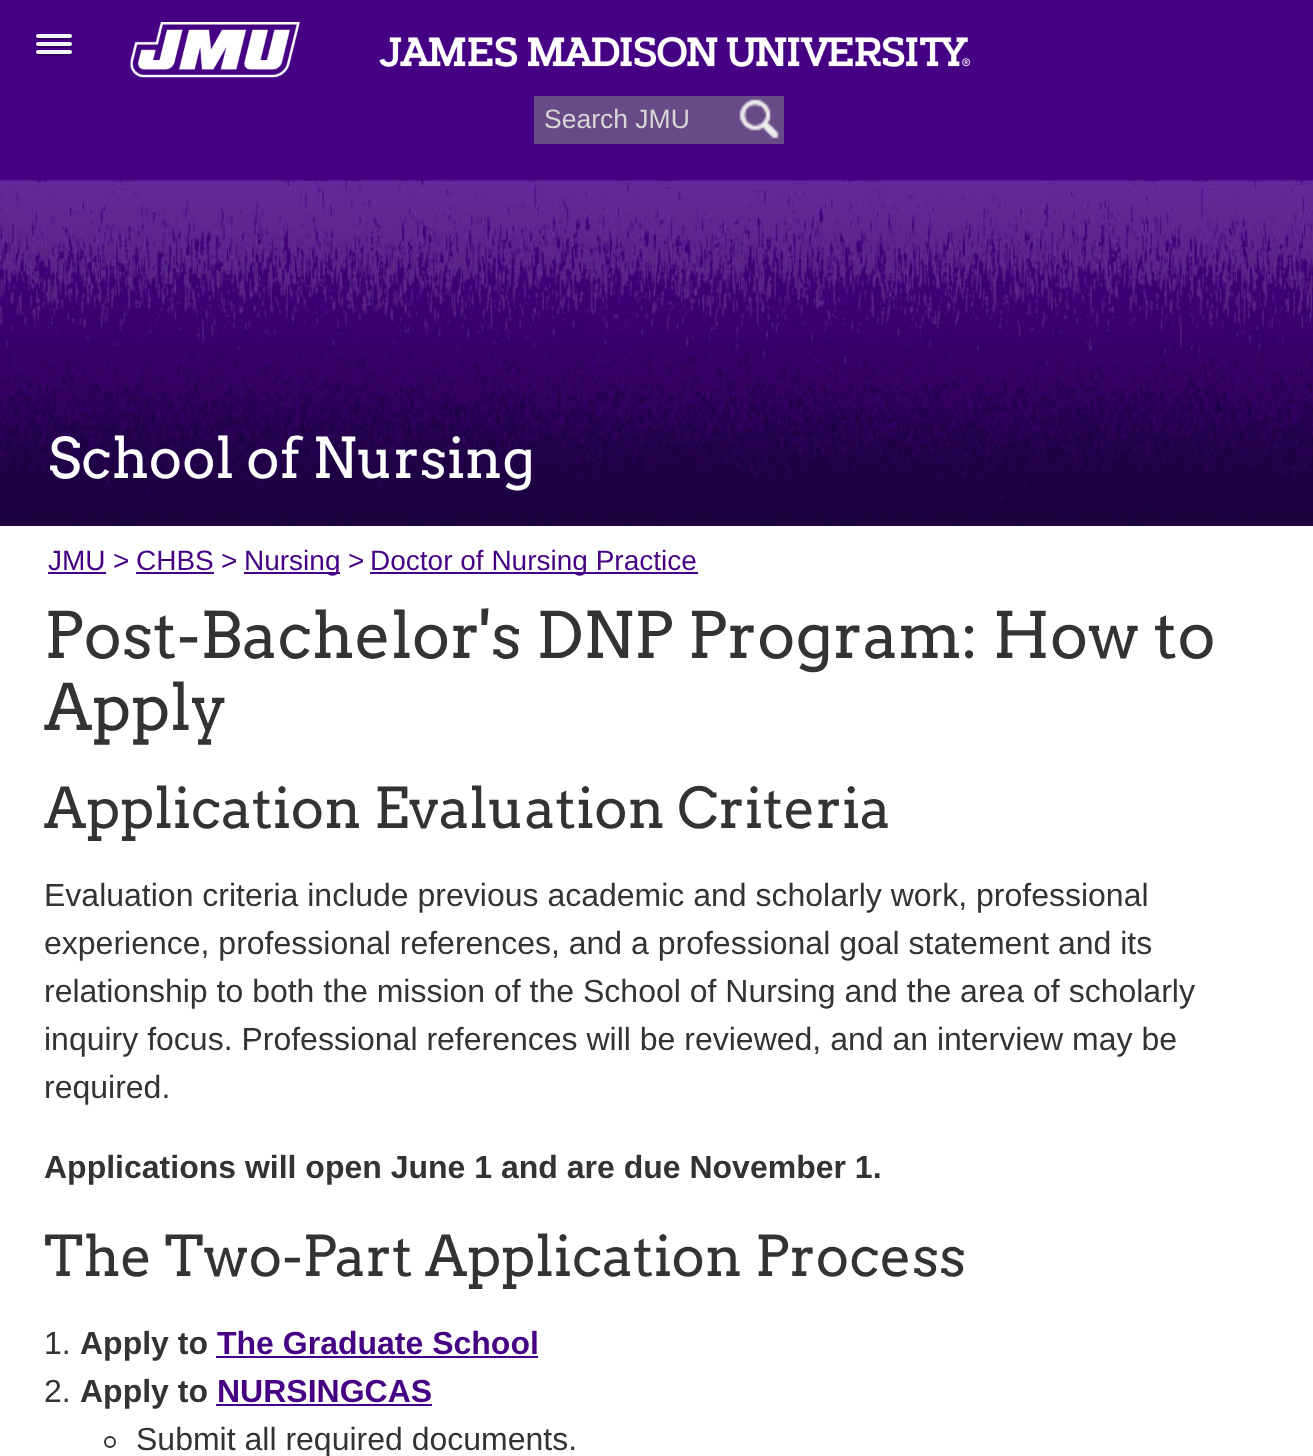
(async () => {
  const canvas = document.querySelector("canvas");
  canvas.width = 1313;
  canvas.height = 1456;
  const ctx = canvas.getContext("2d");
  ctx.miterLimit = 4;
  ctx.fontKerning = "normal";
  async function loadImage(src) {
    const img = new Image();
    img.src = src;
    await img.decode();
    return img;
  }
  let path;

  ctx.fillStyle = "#ffffff";
  ctx.fillRect(0, 0, 1313, 1456);
  ctx.fillStyle = "#450084";
  ctx.fillRect(0, 0, 1313, 180);
  ctx.fillStyle = "#340063";
  path = new Path2D("M36.5 37C34 41 43 40 43.5 40H64.5C65 40 74 41 71.5 37C71.5 37.5 70.5 38 70 38H38C37.5 38 36.5 37.5 36.5 37Z");
  ctx.fill(path);
  ctx.fillStyle = "#f5f5f5";
  ctx.beginPath();
  ctx.roundRect(36, 34, 36, 4, 2);
  ctx.fill();
  ctx.fillStyle = "#340063";
  path = new Path2D("M36.5 45C34 49 43 48 43.5 48H64.5C65 48 74 49 71.5 45C71.5 45.5 70.5 46 70 46H38C37.5 46 36.5 45.5 36.5 45Z");
  ctx.fill(path);
  ctx.fillStyle = "#f5f5f5";
  ctx.beginPath();
  ctx.roundRect(36, 42, 36, 4, 2);
  ctx.fill();
  ctx.fillStyle = "#340063";
  path = new Path2D("M36.5 53C34 57 43 56 43.5 56H64.5C65 56 74 57 71.5 53C71.5 53.5 70.5 54 70 54H38C37.5 54 36.5 53.5 36.5 53Z");
  ctx.fill(path);
  ctx.fillStyle = "#f5f5f5";
  ctx.beginPath();
  ctx.roundRect(36, 50, 36, 4, 2);
  ctx.fill();
  ctx.drawImage(await loadImage("img/1.png"), 130, 22, 840, 56);
  ctx.fillStyle = "#684b86";
  ctx.fillRect(534, 96, 250, 48);
  ctx.drawImage(await loadImage("img/2.png"), 739, 99, 40, 40);
  ctx.drawImage(await loadImage("img/3.png"), 0, 180, 1313, 346);
  for (const [x, y, w, h, color] of [
    [48, 572, 58, 2, "#450084"],
    [136, 572, 78, 2, "#450084"],
    [244, 572, 96, 2, "#450084"],
    [370, 572, 328, 2, "#450084"],
    [216, 1356, 322, 2, "#450084"],
    [216, 1404, 216, 2, "#450084"],
  ]) {
    ctx.fillStyle = color;
    ctx.fillRect(x, y, w, h);
  }
  ctx.beginPath();
  ctx.arc(110, 1442, 5, 0, Math.PI * 2);
  ctx.strokeStyle = "#333333";
  ctx.lineWidth = 2;
  ctx.stroke();
  ctx.font = "26.5px Liberation Sans";
  ctx.fillStyle = "#d6d6d6";
  ctx.fillText("Search JMU", 544, 128);
  ctx.font = "56px Arvo";
  ctx.fillStyle = "#ffffff";
  ctx.fillText("School of Nursing", 48, 478);
  ctx.font = "28px Liberation Sans";
  ctx.fillStyle = "#450084";
  for (const [text, x, y] of [
    ["JMU", 48, 570],
    [">", 113, 570],
    ["CHBS", 136, 570],
    [">", 221, 570],
    ["Nursing", 244, 570],
    [">", 348, 570],
    ["Doctor of Nursing Practice", 370, 570],
  ]) {
    ctx.fillText(text, x, y);
  }
  ctx.font = "64px Arvo";
  ctx.fillStyle = "#333333";
  ctx.fillText("Post-Bachelor's DNP Program: How to", 44, 658);
  ctx.fillText("Apply", 44, 730);
  ctx.font = "56px Arvo";
  ctx.fillText("Application Evaluation Criteria", 44, 828);
  ctx.font = "32px Liberation Sans";
  for (const [text, x, y] of [
    ["Evaluation criteria include previous academic and scholarly work, professional", 44, 906],
    ["experience, professional references, and a professional goal statement and its", 44, 954],
    ["relationship to both the mission of the School of Nursing and the area of scholarly", 44, 1002],
    ["inquiry focus. Professional references will be reviewed, and an interview may be", 44, 1050],
    ["required.", 44, 1098],
  ]) {
    ctx.fillText(text, x, y);
  }
  ctx.font = "bold 32px Liberation Sans";
  ctx.fillText("Applications will open June 1 and are due November 1.", 44, 1178);
  ctx.font = "56px Arvo";
  ctx.fillText("The Two-Part Application Process", 44, 1276);
  ctx.font = "32px Liberation Sans";
  ctx.fillText("1.", 44, 1354);
  ctx.font = "bold 32px Liberation Sans";
  ctx.fillText("Apply to", 80, 1354);
  ctx.fillStyle = "#450084";
  ctx.fillText("The Graduate School", 217, 1354);
  ctx.font = "32px Liberation Sans";
  ctx.fillStyle = "#333333";
  ctx.fillText("2.", 44, 1402);
  ctx.font = "bold 32px Liberation Sans";
  ctx.fillText("Apply to", 80, 1402);
  ctx.fillStyle = "#450084";
  ctx.fillText("NURSINGCAS", 217, 1402);
  ctx.font = "32px Liberation Sans";
  ctx.fillStyle = "#333333";
  ctx.fillText("Submit all required documents.", 136, 1450);
})();
